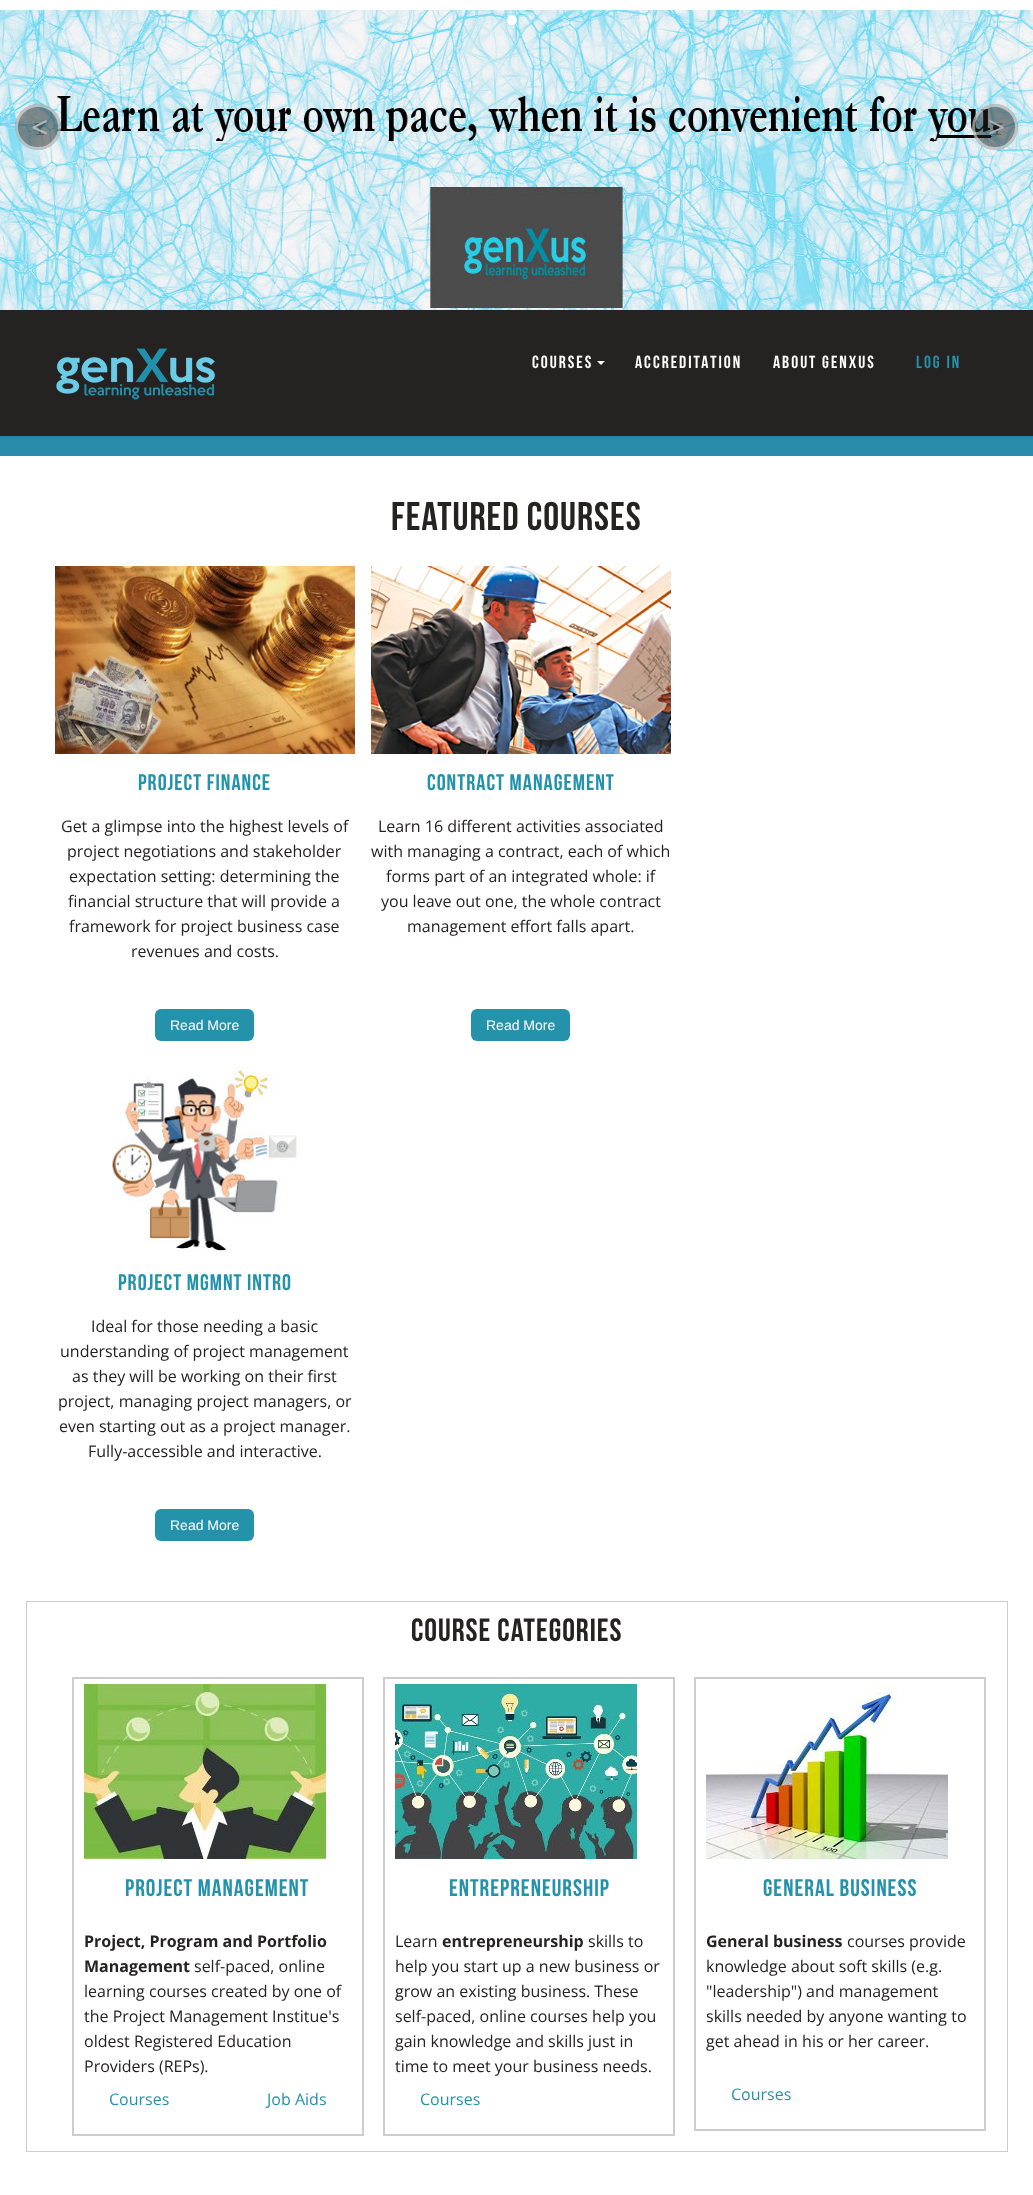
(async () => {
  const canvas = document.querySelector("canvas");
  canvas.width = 1033;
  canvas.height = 2195;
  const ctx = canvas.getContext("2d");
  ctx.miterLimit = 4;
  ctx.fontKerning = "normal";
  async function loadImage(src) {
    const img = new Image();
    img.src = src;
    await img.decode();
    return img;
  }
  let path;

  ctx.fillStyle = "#ffffff";
  ctx.fillRect(0, 0, 1033, 2195);
  ctx.fillStyle = "#298cab";
  ctx.fillRect(0, 436, 1033, 20);
  ctx.fillStyle = "rgba(0, 0, 0, 0.07)";
  ctx.filter = "blur(2px)";
  ctx.beginPath();
  ctx.rect(0, 311, 1033, 126);
  ctx.fill();
  ctx.filter = "none";
  ctx.drawImage(await loadImage("img/1.png"), 0, 10, 1033, 300);
  ctx.fillStyle = "#ffffff";
  ctx.beginPath();
  ctx.arc(512, 20, 5, 0, Math.PI * 2);
  ctx.fill();
  ctx.fillStyle = "rgba(255, 255, 255, 0.25)";
  ctx.beginPath();
  ctx.arc(527, 20, 5, 0, Math.PI * 2);
  ctx.fill();
  ctx.beginPath();
  ctx.arc(542, 20, 5, 0, Math.PI * 2);
  ctx.fill();
  ctx.fillStyle = "rgba(34, 34, 34, 0.5)";
  ctx.beginPath();
  ctx.arc(38, 127, 23, 0, Math.PI * 2);
  ctx.fill();
  ctx.beginPath();
  ctx.arc(38, 127, 21.5, 0, Math.PI * 2);
  ctx.strokeStyle = "rgba(255, 255, 255, 0.5)";
  ctx.lineWidth = 3;
  ctx.stroke();
  ctx.drawImage(await loadImage("img/2.png"), 34, 123, 12, 12);
  ctx.beginPath();
  ctx.arc(995, 127, 23, 0, Math.PI * 2);
  ctx.fill();
  ctx.beginPath();
  ctx.arc(995, 127, 21.5, 0, Math.PI * 2);
  ctx.stroke();
  ctx.drawImage(await loadImage("img/3.png"), 991, 123, 12, 12);
  ctx.fillStyle = "#252222";
  ctx.fillRect(0, 310, 1033, 126);
  ctx.drawImage(await loadImage("img/4.png"), 56, 348, 159, 52);
  ctx.fillStyle = "#ffffff";
  path = new Path2D("M597 361H605L601 365Z");
  ctx.fill(path);
  ctx.drawImage(await loadImage("img/5.png"), 55, 566, 300, 188);
  ctx.fillStyle = "#2492ab";
  ctx.beginPath();
  ctx.roundRect(155, 1009, 99, 32, 6);
  ctx.fill();
  ctx.drawImage(await loadImage("img/6.png"), 371, 566, 300, 188);
  ctx.beginPath();
  ctx.roundRect(471, 1009, 99, 32, 6);
  ctx.fill();
  ctx.drawImage(await loadImage("img/7.png"), 112, 1067, 185, 185);
  ctx.beginPath();
  ctx.roundRect(155, 1509, 99, 32, 6);
  ctx.fill();
  ctx.strokeStyle = "#cdcdcd";
  ctx.lineWidth = 1;
  ctx.strokeRect(26.5, 1601.5, 981, 550);
  ctx.lineWidth = 2;
  ctx.strokeRect(73, 1678, 290, 457);
  ctx.drawImage(await loadImage("img/8.png"), 84, 1684, 242, 175);
  ctx.strokeRect(384, 1678, 290, 457);
  ctx.drawImage(await loadImage("img/9.png"), 395, 1684, 242, 175);
  ctx.strokeRect(695, 1678, 290, 452);
  ctx.drawImage(await loadImage("img/10.png"), 706, 1684, 242, 175);
  ctx.font = "30px 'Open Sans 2'";
  ctx.fillStyle = "#b2bcbe";
  ctx.fillText("<", 31, 138);
  ctx.fillStyle = "#a9b2b4";
  ctx.fillText(">", 988, 138);
  ctx.letterSpacing = "2px";
  ctx.font = "bold 17.5px Bebas Neue";
  ctx.fillStyle = "#ffffff";
  for (const [text, x, y] of [
    ["COURSES", 532, 368],
    ["ACCREDITATION", 635, 368],
    ["ABOUT GENXUS", 773, 368],
  ]) {
    ctx.fillText(text, x, y);
  }
  ctx.fillStyle = "#2492ab";
  ctx.fillText("Log in", 916, 368);
  ctx.letterSpacing = "1px";
  ctx.font = "bold 40px Bebas Neue";
  ctx.fillStyle = "#252222";
  ctx.fillText("Featured Courses", 391, 530);
  ctx.font = "bold 22.5px Bebas Neue";
  ctx.fillStyle = "#2492ab";
  ctx.fillText("Project Finance", 138, 790);
  ctx.letterSpacing = "0px";
  ctx.font = "16px Open Sans";
  ctx.fillStyle = "#252222";
  for (const [text, x, y] of [
    ["Get a glimpse into the highest levels of", 61, 832],
    ["project negotiations and stakeholder", 67, 857],
    ["expectation setting: determining the", 69, 882],
    ["financial structure that will provide a", 68, 907],
    ["framework for project business case", 69, 932],
    ["revenues and costs.", 131, 957],
  ]) {
    ctx.fillText(text, x, y);
  }
  ctx.font = "14px Liberation Sans";
  ctx.fillStyle = "#ffffff";
  ctx.fillText("Read More", 170, 1030);
  ctx.letterSpacing = "1px";
  ctx.font = "bold 22.5px Bebas Neue";
  ctx.fillStyle = "#2492ab";
  ctx.fillText("Contract Management", 427, 790);
  ctx.letterSpacing = "0px";
  ctx.font = "16px Open Sans";
  ctx.fillStyle = "#252222";
  for (const [text, x, y] of [
    ["Learn 16 different activities associated", 378, 832],
    ["with managing a contract, each of which", 371, 857],
    ["forms part of an integrated whole: if", 386, 882],
    ["you leave out one, the whole contract", 381, 907],
    ["management effort falls apart.", 407, 932],
  ]) {
    ctx.fillText(text, x, y);
  }
  ctx.font = "14px Liberation Sans";
  ctx.fillStyle = "#ffffff";
  ctx.fillText("Read More", 486, 1030);
  ctx.letterSpacing = "1px";
  ctx.font = "bold 22.5px Bebas Neue";
  ctx.fillStyle = "#2492ab";
  ctx.fillText("Project Mgmnt Intro", 118, 1290);
  ctx.letterSpacing = "0px";
  ctx.font = "16px Open Sans";
  ctx.fillStyle = "#252222";
  for (const [text, x, y] of [
    ["Ideal for those needing a basic", 91, 1332],
    ["understanding of project management", 60, 1357],
    ["as they will be working on their first", 72, 1382],
    ["project, managing project managers, or", 58, 1407],
    ["even starting out as a project manager.", 59, 1432],
    ["Fully-accessible and interactive.", 88, 1457],
  ]) {
    ctx.fillText(text, x, y);
  }
  ctx.font = "14px Liberation Sans";
  ctx.fillStyle = "#ffffff";
  ctx.fillText("Read More", 170, 1530);
  ctx.letterSpacing = "1px";
  ctx.font = "bold 32px Bebas Neue";
  ctx.fillStyle = "#252222";
  ctx.fillText("Course Categories", 411, 1641);
  ctx.font = "bold 24px Bebas Neue";
  ctx.fillStyle = "#2492ab";
  ctx.fillText("Project Management", 125, 1896);
  ctx.letterSpacing = "0px";
  ctx.font = "bold 16px Open Sans";
  ctx.fillStyle = "#252222";
  ctx.fillText("Project, Program and Portfolio", 84, 1947);
  ctx.fillText("Management", 84, 1972);
  ctx.font = "16px Open Sans";
  for (const [text, x, y] of [
    ["self-paced, online", 194, 1972],
    ["learning courses created by one of", 84, 1997],
    ["the Project Management Institue's", 84, 2022],
    ["oldest Registered Education", 84, 2047],
    ["Providers (REPs).", 84, 2072],
  ]) {
    ctx.fillText(text, x, y);
  }
  ctx.font = "16px 'Open Sans 2'";
  ctx.fillStyle = "#2492ab";
  ctx.fillText("Courses", 109, 2105);
  ctx.fillText("Job Aids", 267, 2105);
  ctx.letterSpacing = "1px";
  ctx.font = "bold 24px Bebas Neue";
  ctx.fillText("Entrepreneurship", 449, 1896);
  ctx.letterSpacing = "0px";
  ctx.font = "16px Open Sans";
  ctx.fillStyle = "#252222";
  ctx.fillText("Learn", 395, 1947);
  ctx.font = "bold 16px Open Sans";
  ctx.fillText("entrepreneurship", 442, 1947);
  ctx.font = "16px Open Sans";
  for (const [text, x, y] of [
    ["skills to", 588, 1947],
    ["help you start up a new business or", 395, 1972],
    ["grow an existing business. These", 395, 1997],
    ["self-paced, online courses help you", 395, 2022],
    ["gain knowledge and skills just in", 395, 2047],
    ["time to meet your business needs.", 395, 2072],
  ]) {
    ctx.fillText(text, x, y);
  }
  ctx.font = "16px 'Open Sans 2'";
  ctx.fillStyle = "#2492ab";
  ctx.fillText("Courses", 420, 2105);
  ctx.letterSpacing = "1px";
  ctx.font = "bold 24px Bebas Neue";
  ctx.fillText("General Business", 763, 1896);
  ctx.letterSpacing = "0px";
  ctx.font = "bold 16px Open Sans";
  ctx.fillStyle = "#252222";
  ctx.fillText("General business", 706, 1947);
  ctx.font = "16px Open Sans";
  for (const [text, x, y] of [
    ["courses provide", 847, 1947],
    ["knowledge about soft skills (e.g.", 706, 1972],
    ["\"leadership\") and management", 706, 1997],
    ["skills needed by anyone wanting to", 706, 2022],
    ["get ahead in his or her career.", 706, 2047],
  ]) {
    ctx.fillText(text, x, y);
  }
  ctx.font = "16px 'Open Sans 2'";
  ctx.fillStyle = "#2492ab";
  ctx.fillText("Courses", 731, 2100);
})();
